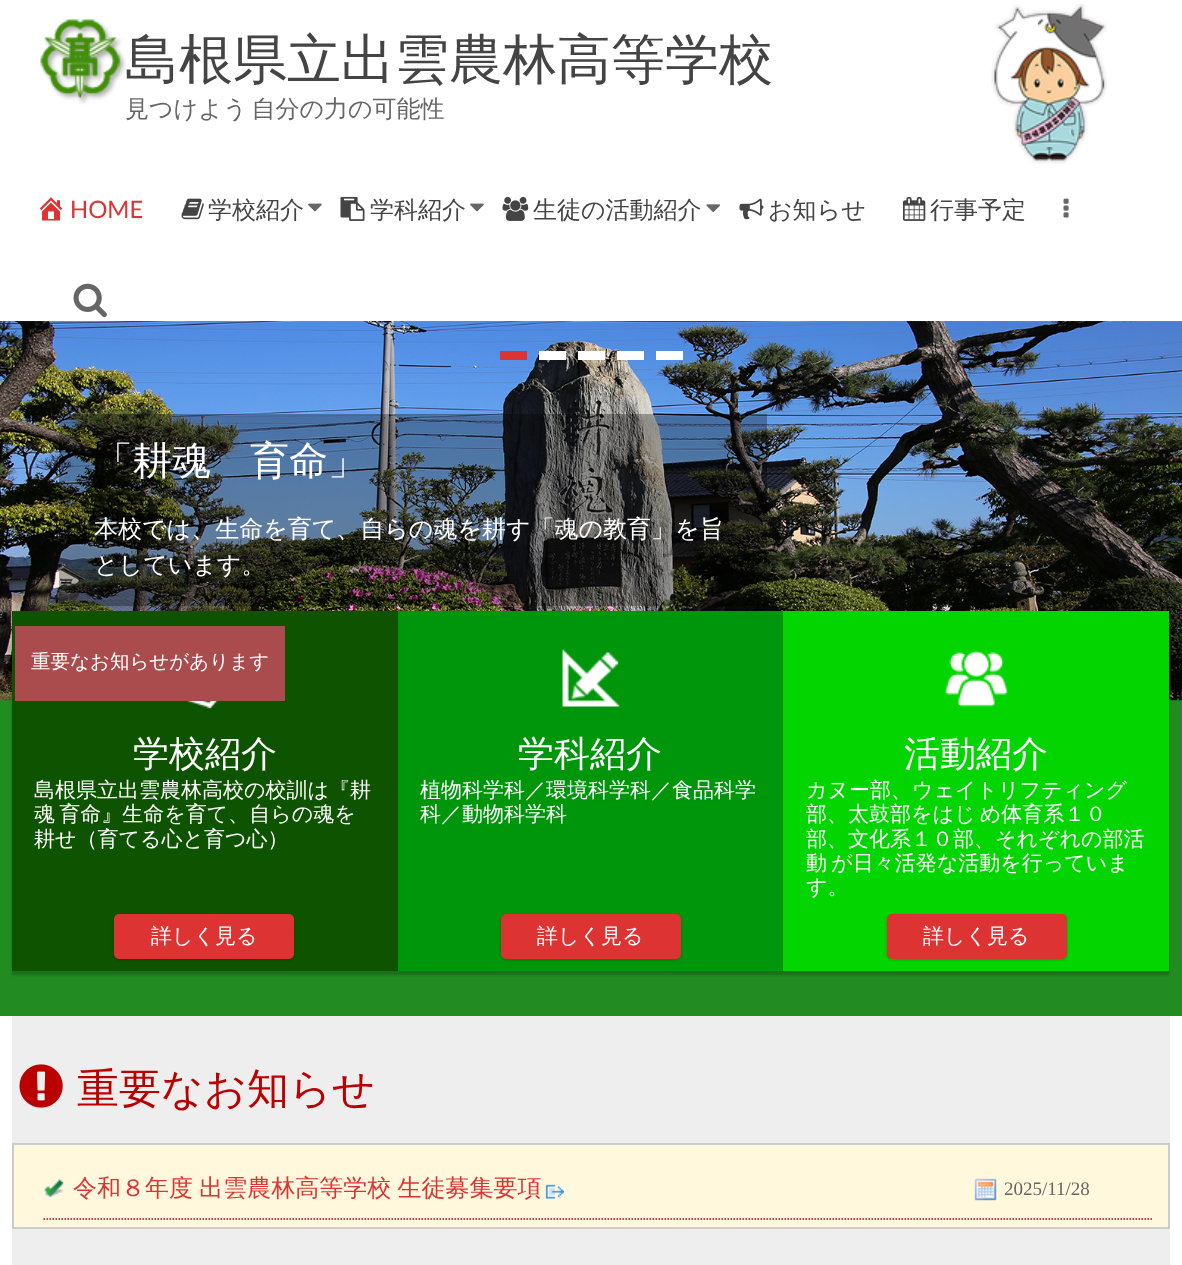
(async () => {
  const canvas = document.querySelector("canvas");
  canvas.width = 1182;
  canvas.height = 1265;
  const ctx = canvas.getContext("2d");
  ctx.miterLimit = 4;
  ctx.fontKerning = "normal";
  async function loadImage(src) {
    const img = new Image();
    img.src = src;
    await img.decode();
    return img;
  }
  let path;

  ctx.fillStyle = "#ffffff";
  ctx.fillRect(0, 0, 1182, 1265);
  ctx.drawImage(await loadImage("img/1.png"), 991, 3, 116, 161);
  ctx.drawImage(await loadImage("img/2.png"), 40, 19, 86, 85);
  ctx.drawImage(await loadImage("img/3.png"), 39, 197, 24, 24);
  ctx.drawImage(await loadImage("img/4.png"), 181, 198, 23, 22);
  ctx.drawImage(await loadImage("img/5.png"), 308, 203, 14, 9);
  ctx.drawImage(await loadImage("img/6.png"), 340, 196, 25, 25);
  ctx.drawImage(await loadImage("img/5.png"), 470, 203, 14, 9);
  ctx.drawImage(await loadImage("img/7.png"), 502, 196, 27, 25);
  ctx.drawImage(await loadImage("img/8.png"), 706, 204, 14, 8);
  ctx.drawImage(await loadImage("img/9.png"), 739, 198, 25, 22);
  ctx.drawImage(await loadImage("img/10.png"), 903, 196, 23, 25);
  ctx.drawImage(await loadImage("img/11.png"), 1063, 198, 6, 20);
  ctx.drawImage(await loadImage("img/12.png"), 73, 283, 34, 35);
  ctx.fillStyle = "#228b22";
  ctx.fillRect(0, 700, 1182, 316);
  ctx.drawImage(await loadImage("img/13.png"), 0, 321, 1182, 380);
  for (const [x, y, w, h, color] of [
    [500, 351, 27, 9, "#dd3333"],
    [539, 351, 27, 9, "#ffffff"],
    [578, 351, 27, 9, "#ffffff"],
    [617, 351, 27, 9, "#ffffff"],
    [656, 351, 27, 9, "#ffffff"],
    [59, 414, 708, 192, "rgba(0, 0, 0, 0.3)"],
    [12, 1016, 1158, 249, "#eeeeee"],
  ]) {
    ctx.fillStyle = color;
    ctx.fillRect(x, y, w, h);
  }
  ctx.save();
  path = new Path2D("M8 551H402V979H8ZM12 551H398V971H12Z");
  ctx.clip(path, "evenodd");
  ctx.fillStyle = "rgba(0, 0, 0, 0.2)";
  ctx.filter = "blur(1px)";
  ctx.beginPath();
  ctx.rect(12, 555, 386, 420);
  ctx.fill();
  ctx.filter = "none";
  ctx.restore();
  ctx.fillStyle = "#0d5300";
  ctx.fillRect(12, 611, 386, 360);
  ctx.fillStyle = "#aa4b4d";
  ctx.fillRect(15, 626, 270, 75);
  ctx.drawImage(await loadImage("img/14.png"), 19, 1064, 44, 44);
  ctx.fillStyle = "#fff8dc";
  ctx.beginPath();
  ctx.rect(13, 1144, 1156, 84);
  ctx.fill();
  ctx.strokeStyle = "#cccccc";
  ctx.lineWidth = 2;
  ctx.stroke();
  ctx.drawImage(await loadImage("img/15.png"), 43, 1179, 21, 18);
  path = new Path2D("M43.5 1219H1153.5");
  ctx.strokeStyle = "#bc0003";
  ctx.lineWidth = 1.5;
  ctx.setLineDash([1.5, 1.5]);
  ctx.stroke(path);
  ctx.drawImage(await loadImage("img/16.png"), 545, 1184, 19, 15);
  ctx.drawImage(await loadImage("img/17.png"), 974, 1178, 23, 23);
  ctx.drawImage(await loadImage("img/18.png"), 187, 701, 31, 8);
  ctx.fillStyle = "rgba(0, 0, 0, 0.2)";
  ctx.filter = "blur(1.5px)";
  ctx.beginPath();
  ctx.roundRect(114, 915, 180, 45, 5);
  ctx.fill();
  ctx.filter = "none";
  ctx.fillStyle = "#dd3333";
  ctx.beginPath();
  ctx.roundRect(114, 914, 180, 45, 5);
  ctx.fill();
  ctx.save();
  path = new Path2D("M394 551H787V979H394ZM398 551H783V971H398Z");
  ctx.clip(path, "evenodd");
  ctx.fillStyle = "rgba(0, 0, 0, 0.2)";
  ctx.filter = "blur(1px)";
  ctx.beginPath();
  ctx.rect(398, 555, 385, 420);
  ctx.fill();
  ctx.filter = "none";
  ctx.restore();
  ctx.fillStyle = "#00960c";
  ctx.fillRect(398, 611, 385, 360);
  ctx.drawImage(await loadImage("img/19.png"), 562, 649, 58, 58);
  ctx.fillStyle = "rgba(0, 0, 0, 0.2)";
  ctx.filter = "blur(1.5px)";
  ctx.beginPath();
  ctx.roundRect(501, 915, 180, 45, 5);
  ctx.fill();
  ctx.filter = "none";
  ctx.fillStyle = "#dd3333";
  ctx.beginPath();
  ctx.roundRect(501, 914, 180, 45, 5);
  ctx.fill();
  ctx.save();
  path = new Path2D("M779 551H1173V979H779ZM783 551H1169V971H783Z");
  ctx.clip(path, "evenodd");
  ctx.fillStyle = "rgba(0, 0, 0, 0.2)";
  ctx.filter = "blur(1px)";
  ctx.beginPath();
  ctx.rect(783, 555, 386, 420);
  ctx.fill();
  ctx.filter = "none";
  ctx.restore();
  ctx.fillStyle = "#02d500";
  ctx.fillRect(783, 611, 386, 360);
  ctx.drawImage(await loadImage("img/20.png"), 944, 650, 65, 57);
  ctx.fillStyle = "rgba(0, 0, 0, 0.2)";
  ctx.filter = "blur(1.5px)";
  ctx.beginPath();
  ctx.roundRect(887, 915, 180, 45, 5);
  ctx.fill();
  ctx.filter = "none";
  ctx.fillStyle = "#dd3333";
  ctx.beginPath();
  ctx.roundRect(887, 914, 180, 45, 5);
  ctx.fill();
  ctx.font = "500 54px WenQuanYi Zen Hei";
  ctx.fillStyle = "#444444";
  ctx.fillText("島根県立出雲農林高等学校", 125, 78);
  ctx.wordSpacing = "-3px";
  ctx.font = "500 24px WenQuanYi Zen Hei";
  ctx.fillStyle = "#666666";
  ctx.fillText("見つけよう 自分の力の可能性", 125, 117);
  ctx.wordSpacing = "0px";
  ctx.font = "24px Lato";
  ctx.fillStyle = "#dd3333";
  ctx.fillText("HOME", 70, 218);
  ctx.font = "500 24px WenQuanYi Zen Hei";
  ctx.fillStyle = "#444444";
  for (const [text, x, y] of [
    ["学校紹介", 208, 218],
    ["学科紹介", 370, 218],
    ["生徒の活動紹介", 533, 218],
    ["お知らせ", 768, 218],
    ["行事予定", 930, 218],
  ]) {
    ctx.fillText(text, x, y);
  }
  ctx.font = "500 39px WenQuanYi Zen Hei";
  ctx.fillStyle = "#ffffff";
  ctx.fillText("「耕魂　育命」", 94, 474);
  ctx.font = "500 24px WenQuanYi Zen Hei";
  ctx.fillText("本校では、生命を育て、自らの魂を耕す「魂の教育」を旨", 94, 537);
  ctx.fillText("としています。", 94, 573);
  ctx.font = "500 19.5px WenQuanYi Zen Hei";
  ctx.fillText("重要なお知らせがあります", 31, 668);
  ctx.font = "500 42px WenQuanYi Zen Hei";
  ctx.fillStyle = "#bb0000";
  ctx.fillText("重要なお知らせ", 77, 1103);
  ctx.wordSpacing = "-1px";
  ctx.font = "500 24px WenQuanYi Zen Hei";
  ctx.fillStyle = "#dd3333";
  ctx.fillText("令和８年度 出雲農林高等学校 生徒募集要項", 73, 1196);
  ctx.wordSpacing = "0px";
  ctx.font = "19px Liberation Serif";
  ctx.fillStyle = "#666666";
  ctx.fillText("2025/11/28", 1004, 1195);
  ctx.font = "500 36px WenQuanYi Zen Hei";
  ctx.fillStyle = "#ffffff";
  ctx.fillText("学校紹介", 133, 766);
  ctx.font = "500 21px WenQuanYi Zen Hei";
  ctx.fillText("島根県立出雲農林高校の校訓は『耕", 34, 797);
  ctx.wordSpacing = "-2px";
  ctx.fillText("魂 育命』生命を育て、自らの魂を", 34, 821);
  ctx.wordSpacing = "0px";
  ctx.fillText("耕せ（育てる心と育つ心）", 34, 846);
  ctx.fillText("詳しく見る", 151, 943);
  ctx.font = "500 36px WenQuanYi Zen Hei";
  ctx.fillText("学科紹介", 518, 766);
  ctx.font = "500 21px WenQuanYi Zen Hei";
  for (const [text, x, y] of [
    ["植物科学科／環境科学科／食品科学", 420, 797],
    ["科／動物科学科", 420, 821],
    ["詳しく見る", 537, 943],
  ]) {
    ctx.fillText(text, x, y);
  }
  ctx.font = "500 36px WenQuanYi Zen Hei";
  ctx.fillText("活動紹介", 904, 766);
  ctx.font = "500 21px WenQuanYi Zen Hei";
  ctx.fillText("カヌー部、ウェイトリフティング", 806, 797);
  ctx.wordSpacing = "-2px";
  ctx.fillText("部、太鼓部をはじ め体育系１０", 806, 821);
  ctx.wordSpacing = "0px";
  ctx.fillText("部、文化系１０部、それぞれの部活", 806, 846);
  ctx.wordSpacing = "-2px";
  ctx.fillText("動 が日々活発な活動を行っていま", 806, 870);
  ctx.wordSpacing = "0px";
  ctx.fillText("す。", 806, 894);
  ctx.fillText("詳しく見る", 923, 943);
})();
